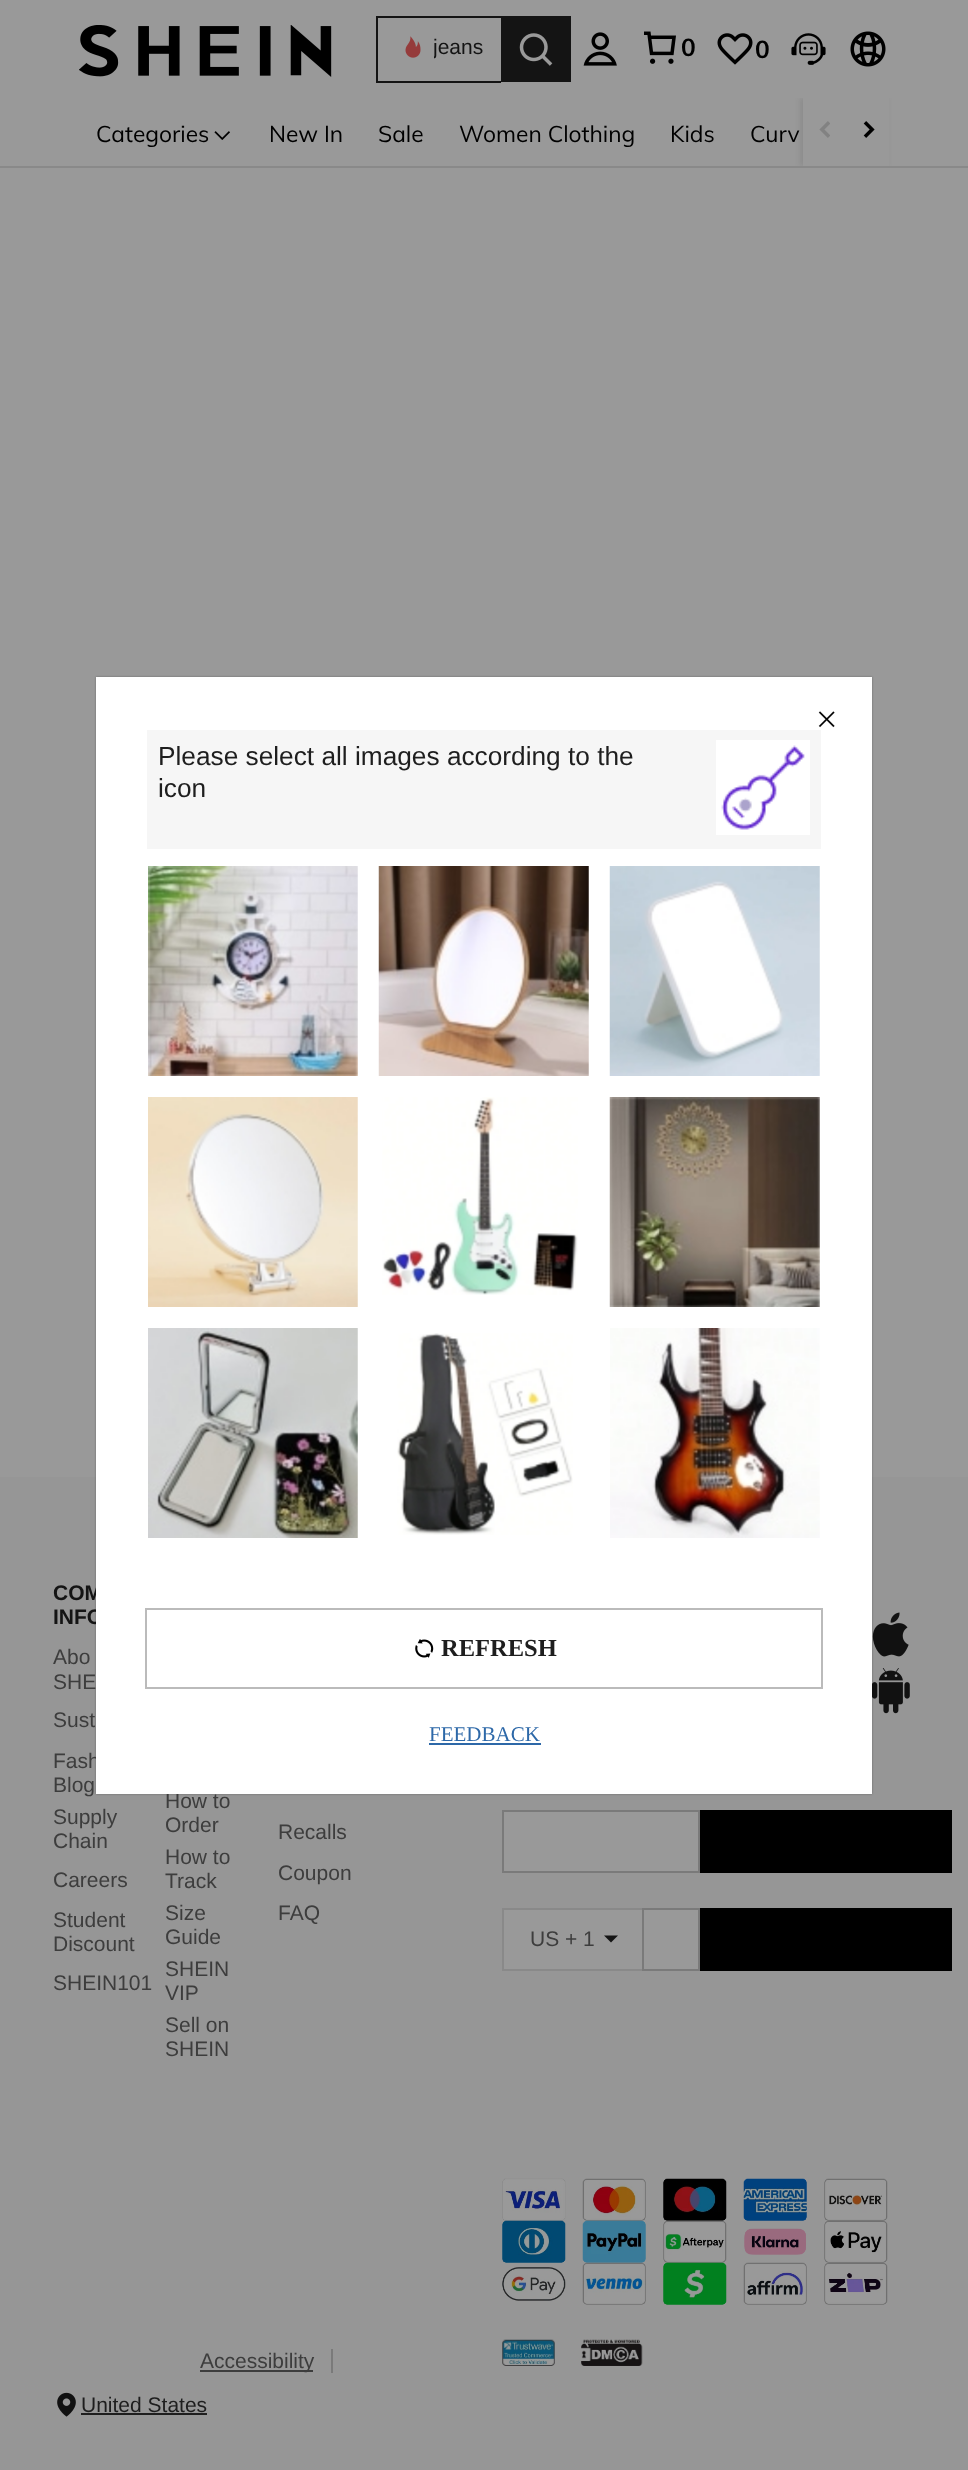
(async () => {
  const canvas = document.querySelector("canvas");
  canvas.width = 968;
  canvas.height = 2470;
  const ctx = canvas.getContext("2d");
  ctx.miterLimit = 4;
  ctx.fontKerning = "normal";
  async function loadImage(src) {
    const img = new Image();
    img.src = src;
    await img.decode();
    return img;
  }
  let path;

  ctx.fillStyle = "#999999";
  ctx.fillRect(0, 0, 968, 2470);
  ctx.drawImage(await loadImage("img/1.png"), 79, 25, 253, 52);
  for (const [x, y, w, h, color] of [
    [376, 16, 125, 2, "#141414"],
    [376, 81, 125, 2, "#141414"],
    [376, 16, 2, 66, "#141414"],
  ]) {
    ctx.fillStyle = color;
    ctx.fillRect(x, y, w, h);
  }
  ctx.drawImage(await loadImage("img/2.png"), 405, 36, 16, 22);
  ctx.fillRect(501, 16, 70, 66);
  ctx.drawImage(await loadImage("img/3.png"), 519, 33, 34, 33);
  ctx.drawImage(await loadImage("img/4.png"), 583, 32, 34, 34);
  ctx.drawImage(await loadImage("img/5.png"), 644, 31, 32, 33);
  ctx.drawImage(await loadImage("img/6.png"), 717, 33, 36, 32);
  ctx.drawImage(await loadImage("img/7.png"), 791, 33, 35, 32);
  ctx.drawImage(await loadImage("img/8.png"), 850, 31, 36, 36);
  ctx.fillStyle = "#898989";
  ctx.fillRect(0, 166, 968, 2);
  ctx.drawImage(await loadImage("img/9.png"), 214, 131, 16, 9);
  ctx.save();
  ctx.beginPath();
  ctx.rect(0, 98, 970, 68);
  ctx.clip();
  ctx.fillStyle = "rgba(0, 0, 0, 0.08)";
  ctx.filter = "blur(2.5px)";
  ctx.beginPath();
  ctx.rect(800, 98, 87, 68);
  ctx.fill();
  ctx.filter = "none";
  ctx.restore();
  ctx.fillStyle = "#999999";
  ctx.fillRect(803, 98, 86, 68);
  ctx.drawImage(await loadImage("img/10.png"), 819, 121, 11, 17);
  ctx.drawImage(await loadImage("img/11.png"), 863, 121, 12, 17);
  ctx.fillStyle = "#969696";
  ctx.fillRect(0, 1477, 968, 993);
  ctx.drawImage(await loadImage("img/12.png"), 872, 1612, 37, 45);
  ctx.drawImage(await loadImage("img/13.png"), 872, 1668, 38, 46);
  ctx.fillStyle = "#999999";
  ctx.beginPath();
  ctx.rect(503, 1811, 196, 61);
  ctx.fill();
  ctx.strokeStyle = "#7a7a7a";
  ctx.lineWidth = 2;
  ctx.stroke();
  for (const [x, y, w, h, color] of [
    [700, 1810, 252, 63, "#000000"],
    [504, 1910, 138, 59, "#999999"],
    [502, 1908, 140, 2, "#898989"],
    [502, 1969, 140, 2, "#898989"],
    [502, 1908, 2, 63, "#898989"],
  ]) {
    ctx.fillStyle = color;
    ctx.fillRect(x, y, w, h);
  }
  ctx.fillStyle = "#141414";
  path = new Path2D("M604 1935.5H618L611 1942.5Z");
  ctx.fill(path);
  ctx.fillStyle = "#999999";
  ctx.beginPath();
  ctx.rect(643, 1909, 56, 61);
  ctx.fill();
  ctx.stroke();
  ctx.fillStyle = "#000000";
  ctx.fillRect(700, 1908, 252, 63);
  ctx.drawImage(await loadImage("img/14.png"), 502, 2178, 64, 43);
  ctx.drawImage(await loadImage("img/15.png"), 582, 2178, 64, 43);
  ctx.drawImage(await loadImage("img/16.png"), 663, 2178, 64, 43);
  ctx.drawImage(await loadImage("img/17.png"), 743, 2178, 64, 43);
  ctx.drawImage(await loadImage("img/18.png"), 824, 2178, 64, 43);
  ctx.drawImage(await loadImage("img/19.png"), 502, 2220, 64, 43);
  ctx.drawImage(await loadImage("img/20.png"), 582, 2220, 64, 43);
  ctx.drawImage(await loadImage("img/21.png"), 663, 2220, 64, 43);
  ctx.drawImage(await loadImage("img/22.png"), 744, 2228, 62, 27);
  ctx.drawImage(await loadImage("img/23.png"), 824, 2220, 64, 43);
  ctx.drawImage(await loadImage("img/24.png"), 502, 2267, 64, 34);
  ctx.drawImage(await loadImage("img/25.png"), 582, 2262, 64, 43);
  ctx.drawImage(await loadImage("img/26.png"), 663, 2262, 64, 43);
  ctx.drawImage(await loadImage("img/27.png"), 743, 2262, 64, 43);
  ctx.drawImage(await loadImage("img/28.png"), 824, 2262, 64, 43);
  ctx.fillStyle = "#7a7a7a";
  ctx.fillRect(331, 2349, 2, 24);
  ctx.fillStyle = "#3d3d3d";
  ctx.fillRect(200, 2370, 113, 2);
  ctx.drawImage(await loadImage("img/29.png"), 57, 2392, 19, 25);
  ctx.fillStyle = "#1e1e1e";
  ctx.fillRect(81, 2413, 126, 2);
  ctx.drawImage(await loadImage("img/30.png"), 502, 2339, 53, 27);
  ctx.drawImage(await loadImage("img/31.png"), 581, 2339, 62, 27);
  ctx.fillStyle = "rgba(0, 0, 0, 0.3)";
  ctx.filter = "blur(1px)";
  ctx.beginPath();
  ctx.rect(96, 677, 776, 1117);
  ctx.fill();
  ctx.filter = "none";
  ctx.save();
  ctx.beginPath();
  ctx.rect(434, 37, 49, 24);
  ctx.clip();
  ctx.font = "21px Liberation Sans";
  ctx.fillStyle = "#141414";
  ctx.fillText("jeans", 433, 54);
  ctx.restore();
  ctx.font = "bold 24.5px Muli";
  ctx.fillStyle = "#000000";
  ctx.fillText("0", 681, 56);
  ctx.fillText("0", 755, 58);
  ctx.font = "22.75px Muli";
  for (const [text, x, y] of [
    ["Categories", 96, 142],
    ["New In", 269, 142],
    ["Sale", 378, 142],
    ["Women Clothing", 459, 142],
    ["Kids", 670, 142],
    ["Curv", 750, 142],
  ]) {
    ctx.fillText(text, x, y);
  }
  ctx.font = "bold 21px Liberation Sans";
  ctx.fillStyle = "#141414";
  ctx.fillText("COM", 53, 1600);
  ctx.fillText("INFO", 53, 1624);
  ctx.font = "21px Liberation Sans";
  ctx.fillStyle = "#3d3d3d";
  for (const [text, x, y] of [
    ["Abo", 53, 1664],
    ["SHE", 53, 1689],
    ["Sust", 53, 1727],
    ["Fash", 53, 1768],
    ["Blog", 53, 1792],
    ["Supply", 53, 1824],
    ["Chain", 53, 1848],
    ["Careers", 53, 1887],
    ["Student", 53, 1927],
    ["Discount", 53, 1951],
    ["SHEIN101", 53, 1990],
    ["How to", 165, 1808],
    ["Order", 165, 1832],
    ["How to", 165, 1864],
    ["Track", 165, 1888],
    ["Size", 165, 1920],
    ["Guide", 165, 1944],
    ["SHEIN", 165, 1976],
    ["VIP", 165, 2000],
    ["Sell on", 165, 2032],
    ["SHEIN", 165, 2056],
    ["Recalls", 278, 1839],
    ["Coupon", 278, 1880],
    ["FAQ", 278, 1920],
    ["US + 1", 530, 1946],
    ["Accessibility", 200, 2368],
  ]) {
    ctx.fillText(text, x, y);
  }
  ctx.fillStyle = "#1e1e1e";
  ctx.fillText("United States", 81, 2412);
  ctx.fillStyle = "#ffffff";
  ctx.fillRect(96, 677, 776, 1117);
  ctx.drawImage(await loadImage("img/32.png"), 818, 711, 17, 17);
  ctx.fillStyle = "#f6f6f6";
  ctx.fillRect(147, 730, 674, 119);
  ctx.font = "26.25px Liberation Sans";
  ctx.fillStyle = "#1e1e1e";
  ctx.fillText("Please select all images according to the", 158, 765);
  ctx.fillText("icon", 158, 797);
  ctx.fillStyle = "#ffffff";
  ctx.fillRect(716, 740, 94, 95);
  ctx.drawImage(await loadImage("img/33.png"), 721, 745, 84, 85);
  ctx.drawImage(await loadImage("img/34.png"), 148, 866, 210, 210);
  ctx.drawImage(await loadImage("img/35.png"), 378, 866, 211, 210);
  ctx.drawImage(await loadImage("img/36.png"), 609, 866, 211, 210);
  ctx.drawImage(await loadImage("img/37.png"), 148, 1097, 210, 210);
  ctx.drawImage(await loadImage("img/38.png"), 382, 1097, 196, 198);
  ctx.drawImage(await loadImage("img/39.png"), 609, 1097, 211, 210);
  ctx.drawImage(await loadImage("img/40.png"), 148, 1328, 210, 210);
  ctx.drawImage(await loadImage("img/41.png"), 397, 1333, 176, 202);
  ctx.drawImage(await loadImage("img/42.png"), 610, 1328, 210, 210);
  ctx.strokeStyle = "#bbbbbb";
  ctx.strokeRect(146, 1609, 676, 79);
  ctx.drawImage(await loadImage("img/43.png"), 415, 1639, 19, 19);
  ctx.font = "bold 24.5px Liberation Serif";
  ctx.fillStyle = "#1e1e1e";
  ctx.fillText("REFRESH", 441, 1656);
  ctx.font = "21px Liberation Serif";
  ctx.fillStyle = "#2d68a8";
  ctx.fillText("FEEDBACK", 429, 1741);
  ctx.fillRect(429, 1743, 112, 2);
})();
